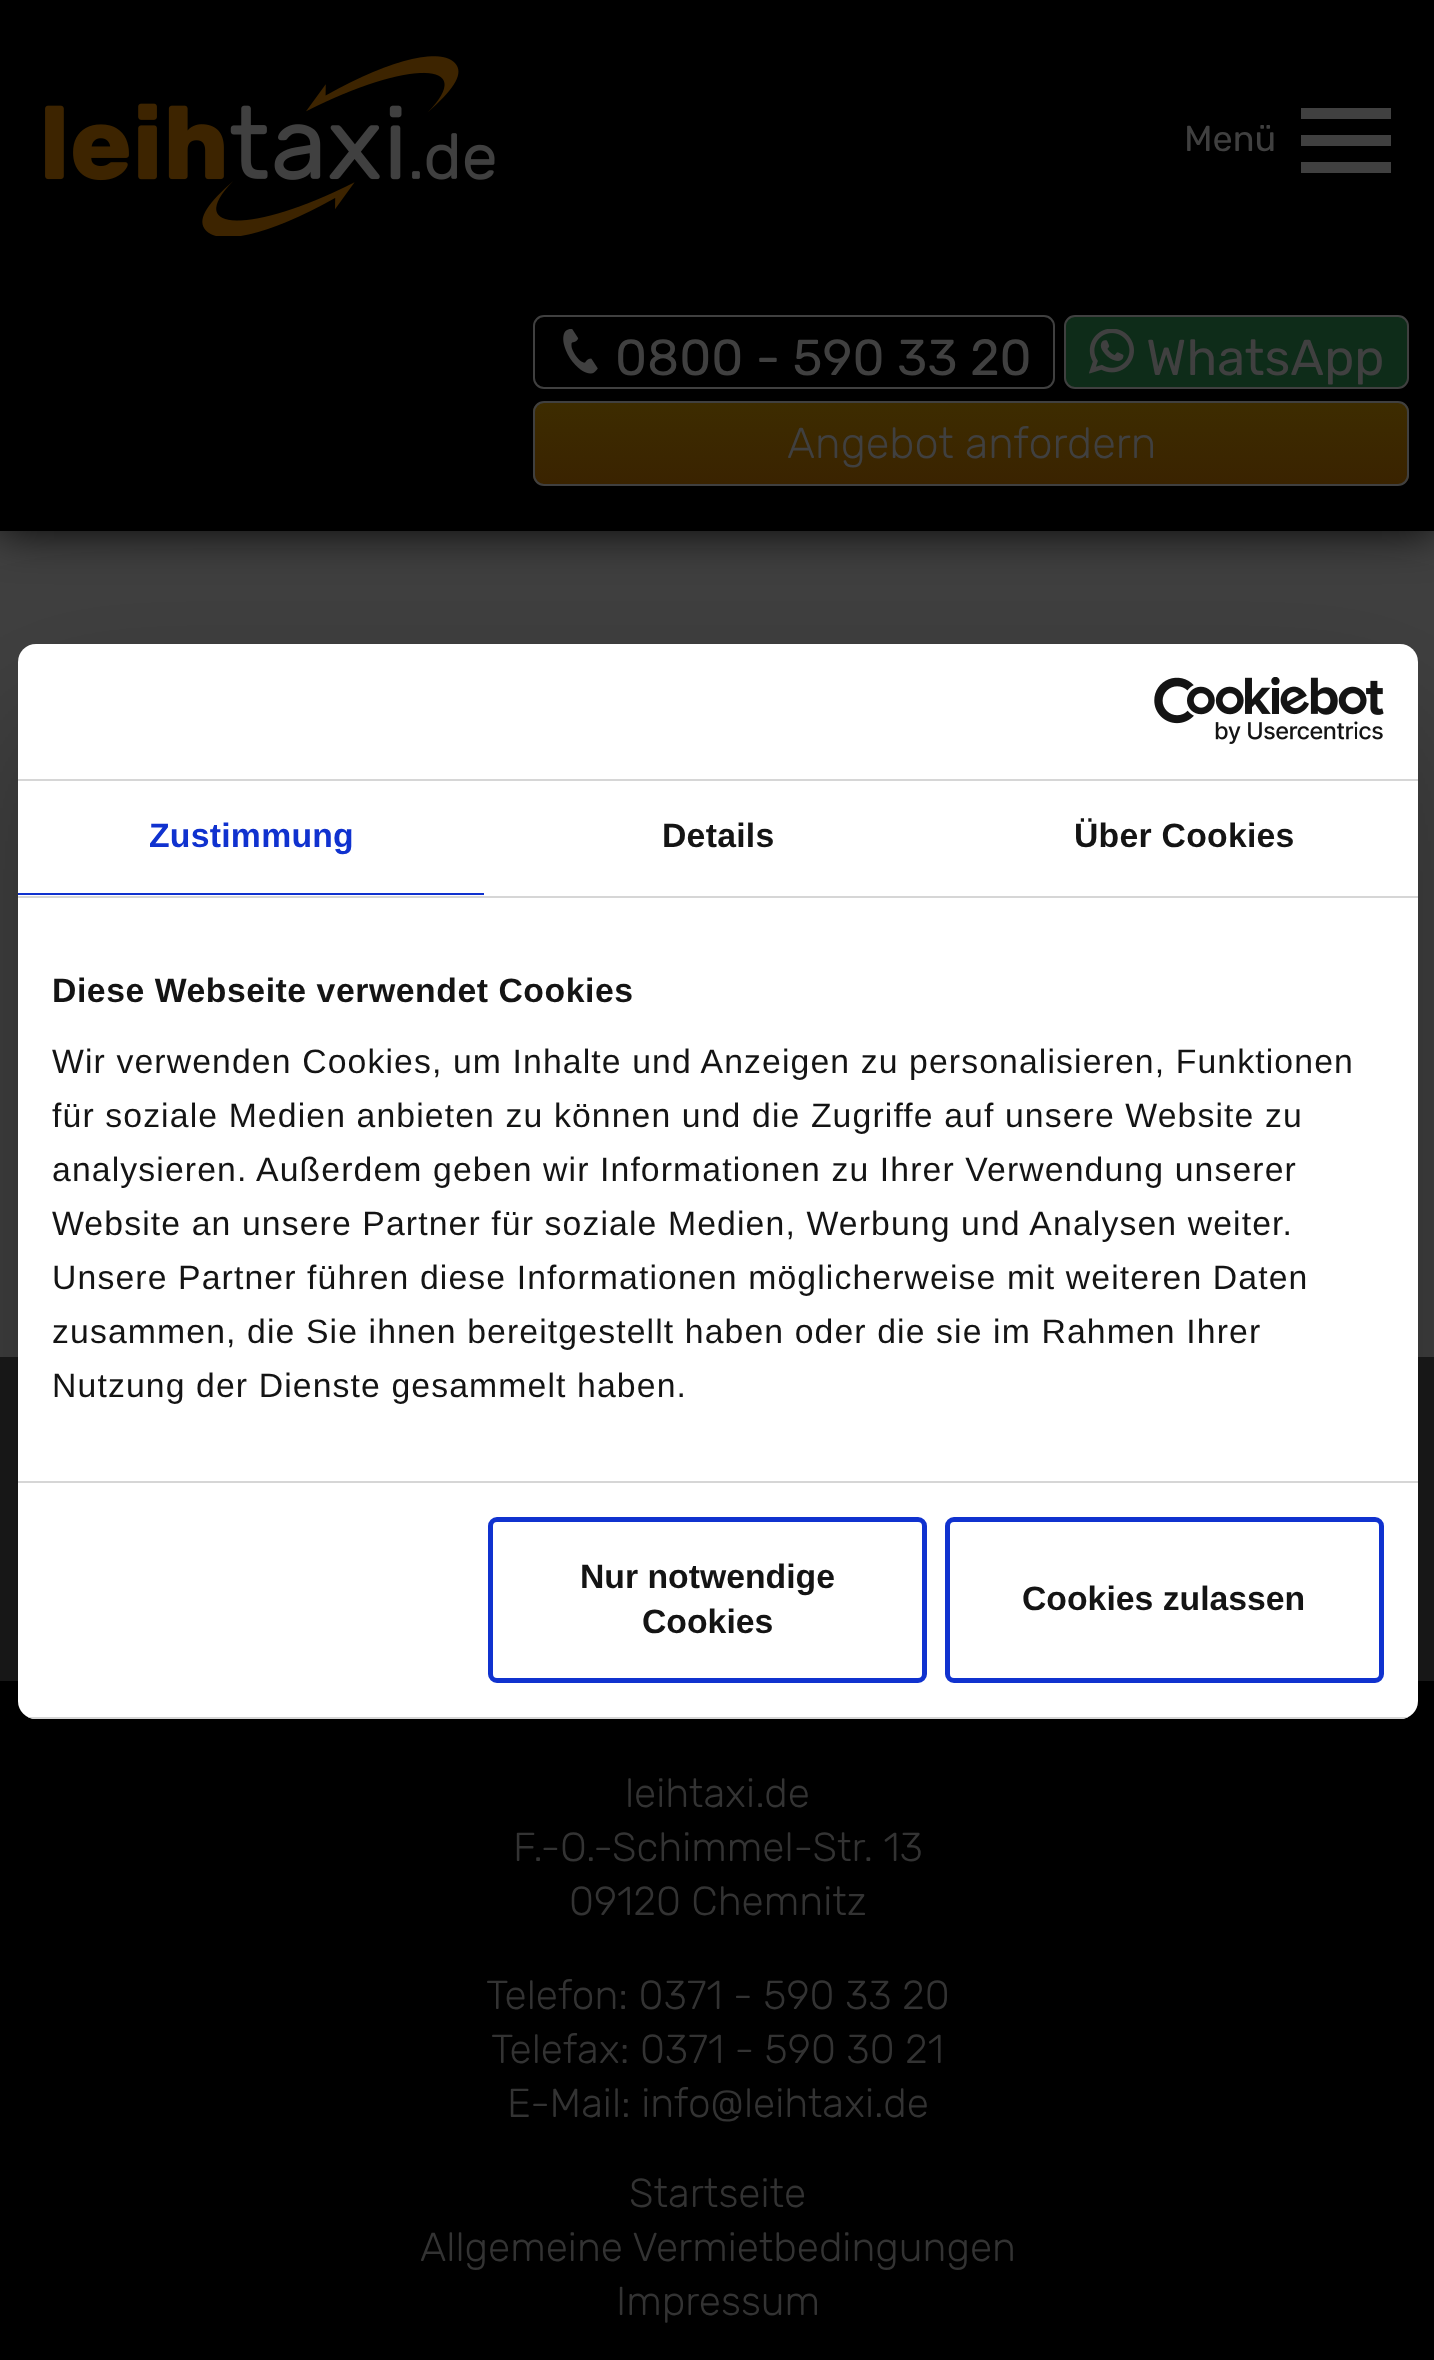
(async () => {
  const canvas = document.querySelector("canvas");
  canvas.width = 1434;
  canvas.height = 2360;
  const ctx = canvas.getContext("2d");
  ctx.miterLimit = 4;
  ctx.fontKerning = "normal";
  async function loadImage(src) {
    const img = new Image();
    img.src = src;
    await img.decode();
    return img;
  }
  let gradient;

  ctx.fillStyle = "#404040";
  ctx.fillRect(0, 0, 1434, 2360);
  ctx.fillStyle = "rgba(0, 0, 0, 0.9)";
  ctx.filter = "blur(22.5px)";
  ctx.beginPath();
  ctx.rect(0, 0, 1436, 531);
  ctx.fill();
  ctx.filter = "none";
  ctx.fillStyle = "#000000";
  ctx.fillRect(0, 0, 1434, 531);
  ctx.drawImage(await loadImage("img/1.png"), 45, 56, 450, 180);
  for (const [x, y, w, h, color] of [
    [1301, 135, 90, 11, "#404040"],
    [1301, 108, 90, 11, "#404040"],
    [1301, 162, 90, 11, "#404040"],
  ]) {
    ctx.fillStyle = color;
    ctx.fillRect(x, y, w, h);
  }
  ctx.beginPath();
  ctx.roundRect(534, 316, 520, 72, 10);
  ctx.strokeStyle = "#404040";
  ctx.lineWidth = 2;
  ctx.stroke();
  ctx.drawImage(await loadImage("img/2.png"), 563, 329, 35, 45);
  ctx.fillStyle = "#0e2c19";
  ctx.beginPath();
  ctx.roundRect(1065, 316, 343, 72, 10);
  ctx.fill();
  ctx.stroke();
  ctx.drawImage(await loadImage("img/3.png"), 1089, 329, 45, 45);
  ctx.save();
  ctx.beginPath();
  ctx.roundRect(533, 401, 876, 85, 11);
  ctx.clip();
  gradient = ctx.createLinearGradient(971, 403, 971, 484);
  gradient.addColorStop(0, "#3d2c00");
  gradient.addColorStop(1, "#3a2300");
  ctx.fillStyle = gradient;
  ctx.fillRect(533, 403, 876, 81);
  ctx.restore();
  ctx.beginPath();
  ctx.roundRect(534, 402, 874, 83, 10);
  ctx.stroke();
  ctx.fillStyle = "#000000";
  ctx.fillRect(0, 1681, 1434, 679);
  ctx.fillStyle = "#1b1b1b";
  ctx.fillRect(0, 1357, 1434, 324);
  ctx.fillStyle = "rgba(0, 0, 0, 0.3)";
  ctx.filter = "blur(76.5px)";
  ctx.beginPath();
  ctx.roundRect(18, 716, 1400, 1075, 18);
  ctx.fill();
  ctx.filter = "none";
  ctx.fillStyle = "#ffffff";
  ctx.beginPath();
  ctx.roundRect(18, 644, 1400, 1075, 18);
  ctx.fill();
  ctx.fillStyle = "#d6d6d6";
  ctx.fillRect(18, 779, 1400, 2);
  ctx.drawImage(await loadImage("img/4.png"), 1154, 677, 230, 67);
  for (const [x, y, w, h, color] of [
    [18, 896, 1400, 2, "#d6d6d6"],
    [18, 893, 466, 2, "#1032cf"],
    [18, 1481, 1400, 2, "#d6d6d6"],
  ]) {
    ctx.fillStyle = color;
    ctx.fillRect(x, y, w, h);
  }
  ctx.save();
  ctx.beginPath();
  ctx.roundRect(18, 644, 1400, 1075, 18);
  ctx.clip();
  ctx.fillRect(28, 1717, 1380, 2);
  ctx.restore();
  ctx.beginPath();
  ctx.roundRect(490.5, 1519.5, 434, 161, 6.5);
  ctx.strokeStyle = "#1032cf";
  ctx.lineWidth = 5;
  ctx.stroke();
  ctx.beginPath();
  ctx.roundRect(947.5, 1519.5, 434, 161, 6.5);
  ctx.stroke();
  ctx.font = "36px Rubik";
  ctx.fillStyle = "#404040";
  ctx.fillText("Menü", 1184, 151);
  ctx.font = "50.5px Rubik";
  ctx.fillText("0800 - 590 33 20", 615, 375);
  ctx.fillText("WhatsApp", 1146, 375);
  ctx.font = "300 43.25px Rubik";
  ctx.fillText("Angebot anfordern", 787, 458);
  ctx.font = "300 40.5px Rubik";
  ctx.fillStyle = "#333333";
  for (const [text, x, y] of [
    ["leihtaxi.de", 625, 1807],
    ["F.-O.-Schimmel-Str. 13", 513, 1861],
    ["09120 Chemnitz", 569, 1915],
    ["Telefon: 0371 - 590 33 20", 486, 2009],
    ["Telefax: 0371 - 590 30 21", 491, 2063],
    ["E-Mail: info@leihtaxi.de", 507, 2117],
    ["Startseite", 629, 2207],
    ["Allgemeine Vermietbedingungen", 420, 2261],
    ["Impressum", 616, 2315],
  ]) {
    ctx.fillText(text, x, y);
  }
  ctx.letterSpacing = "0.25px";
  ctx.font = "bold 33.75px Liberation Sans";
  ctx.fillStyle = "#1032cf";
  ctx.fillText("Zustimmung", 149, 847);
  ctx.fillStyle = "#141414";
  ctx.fillText("Details", 662, 847);
  ctx.fillText("Über Cookies", 1074, 847);
  ctx.letterSpacing = "0.55px";
  ctx.fillText("Diese Webseite verwendet Cookies", 52, 1002);
  ctx.letterSpacing = "1.12px";
  ctx.font = "33.75px Liberation Sans";
  for (const [text, x, y] of [
    ["Wir verwenden Cookies, um Inhalte und Anzeigen zu personalisieren, Funktionen", 52, 1073],
    ["für soziale Medien anbieten zu können und die Zugriffe auf unsere Website zu", 52, 1127],
    ["analysieren. Außerdem geben wir Informationen zu Ihrer Verwendung unserer", 52, 1181],
    ["Website an unsere Partner für soziale Medien, Werbung und Analysen weiter.", 52, 1235],
    ["Unsere Partner führen diese Informationen möglicherweise mit weiteren Daten", 52, 1289],
    ["zusammen, die Sie ihnen bereitgestellt haben oder die sie im Rahmen Ihrer", 52, 1343],
    ["Nutzung der Dienste gesammelt haben.", 52, 1397],
  ]) {
    ctx.fillText(text, x, y);
  }
  ctx.letterSpacing = "0px";
  ctx.font = "bold 33.75px Liberation Sans";
  for (const [text, x, y] of [
    ["Nur notwendige", 580, 1588],
    ["Cookies", 642, 1633],
    ["Cookies zulassen", 1022, 1610],
  ]) {
    ctx.fillText(text, x, y);
  }
})();
